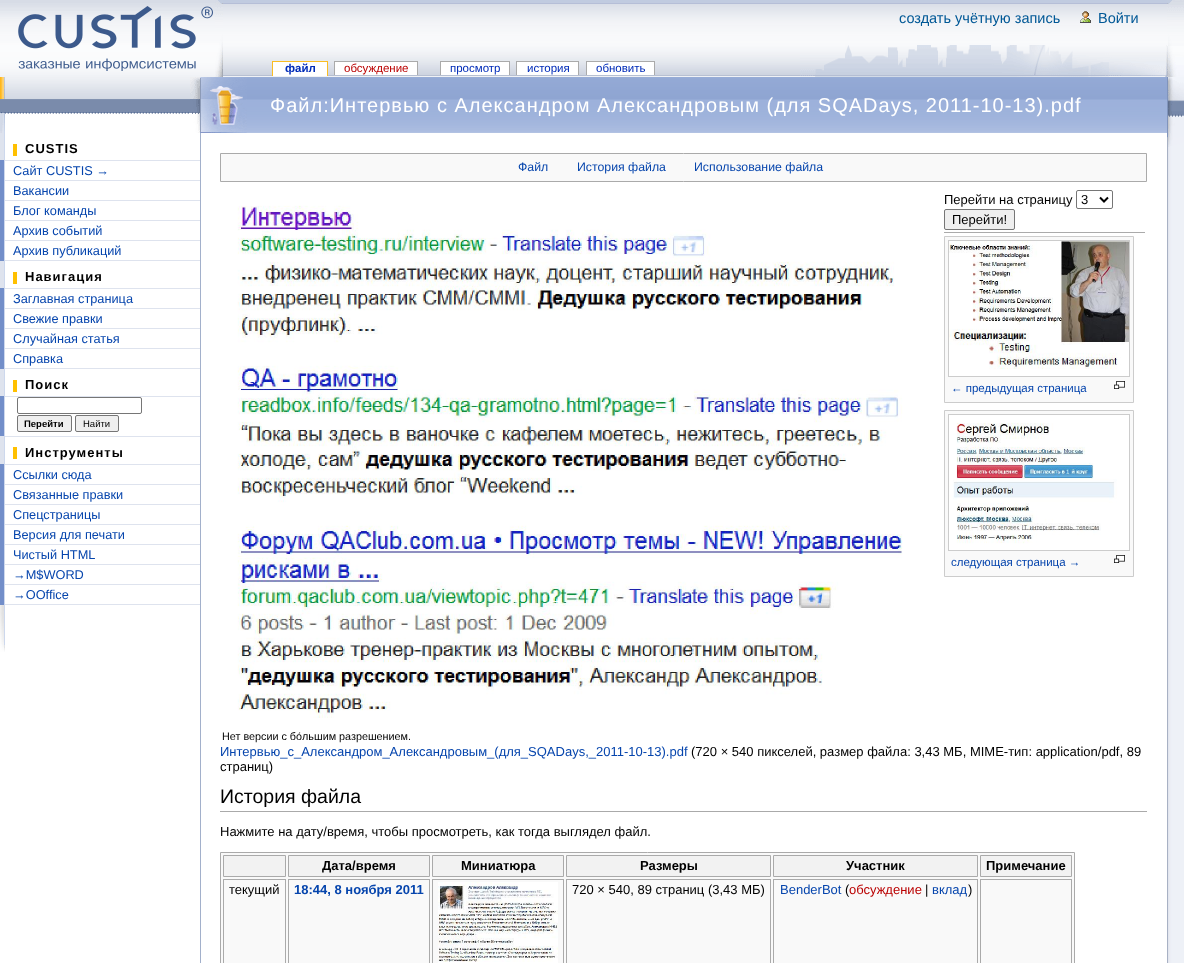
(async () => {
  const canvas = document.querySelector("canvas");
  canvas.width = 1184;
  canvas.height = 963;
  const ctx = canvas.getContext("2d");
  ctx.miterLimit = 4;
  ctx.fontKerning = "normal";
  async function loadImage(src) {
    const img = new Image();
    img.src = src;
    await img.decode();
    return img;
  }
  let path;

  ctx.fillStyle = "#ffffff";
  ctx.fillRect(0, 0, 1184, 963);
  ctx.drawImage(await loadImage("img/1.png"), 0, 0, 1167, 77);
  ctx.drawImage(await loadImage("img/2.png"), 0, 0, 215, 76);
  ctx.drawImage(await loadImage("img/3.png"), 18, 6, 195, 65);
  ctx.drawImage(await loadImage("img/4.png"), 215, 0, 8, 77);
  ctx.drawImage(await loadImage("img/5.png"), 1080, 11, 11, 12);
  ctx.drawImage(await loadImage("img/6.png"), 1167, 0, 17, 77);
  ctx.drawImage(await loadImage("img/7.png"), 800, 45, 367, 32);
  for (const [x, y, w, h, color] of [
    [273, 62, 54, 14, "#ffffff"],
    [272, 61, 56, 1, "#fabd23"],
    [327, 61, 1, 15, "#fabd23"],
    [272, 61, 1, 15, "#fabd23"],
    [335, 62, 82, 13, "#ffffff"],
    [334, 61, 84, 1, "#aaaaaa"],
    [417, 61, 1, 14, "#aaaaaa"],
    [334, 61, 1, 14, "#aaaaaa"],
    [441, 62, 68, 13, "#ffffff"],
    [440, 61, 70, 1, "#aaaaaa"],
    [509, 61, 1, 14, "#aaaaaa"],
    [440, 61, 1, 14, "#aaaaaa"],
    [517, 62, 61, 13, "#ffffff"],
    [516, 61, 63, 1, "#aaaaaa"],
    [578, 61, 1, 14, "#aaaaaa"],
    [516, 61, 1, 14, "#aaaaaa"],
    [587, 62, 67, 13, "#ffffff"],
    [586, 61, 69, 1, "#aaaaaa"],
    [654, 61, 1, 14, "#aaaaaa"],
    [586, 61, 1, 14, "#aaaaaa"],
  ]) {
    ctx.fillStyle = color;
    ctx.fillRect(x, y, w, h);
  }
  ctx.drawImage(await loadImage("img/8.png"), 0, 77, 5, 56);
  ctx.drawImage(await loadImage("img/9.png"), 5, 77, 185, 37);
  ctx.drawImage(await loadImage("img/10.png"), 190, 77, 10, 56);
  for (const [x, y, w, h, color] of [
    [0, 133, 4, 27, "#dee3ee"],
    [4, 133, 1, 27, "#cdd8ed"],
    [13, 144, 4, 12, "#ffc000"],
    [0, 160, 5, 1, "#728ec9"],
    [4, 160, 1, 20, "#cdd8ed"],
    [5, 160, 195, 1, "#dee3ee"],
    [0, 161, 4, 19, "#728ec9"],
    [0, 180, 5, 1, "#728ec9"],
    [4, 180, 1, 20, "#cdd8ed"],
    [5, 180, 195, 1, "#dee3ee"],
    [0, 181, 4, 19, "#728ec9"],
    [0, 200, 5, 1, "#728ec9"],
    [4, 200, 1, 20, "#cdd8ed"],
    [5, 200, 195, 1, "#dee3ee"],
    [0, 201, 4, 19, "#728ec9"],
    [0, 220, 5, 1, "#728ec9"],
    [4, 220, 1, 20, "#cdd8ed"],
    [5, 220, 195, 1, "#dee3ee"],
    [0, 221, 4, 19, "#728ec9"],
    [0, 240, 5, 1, "#728ec9"],
    [4, 240, 1, 20, "#cdd8ed"],
    [5, 240, 195, 1, "#dee3ee"],
    [0, 241, 4, 19, "#728ec9"],
    [0, 260, 5, 1, "#728ec9"],
    [4, 260, 1, 28, "#cdd8ed"],
    [5, 260, 195, 1, "#dee3ee"],
    [0, 261, 4, 27, "#dee3ee"],
    [13, 272, 4, 12, "#ffc000"],
    [0, 288, 5, 1, "#728ec9"],
    [4, 288, 1, 20, "#cdd8ed"],
    [5, 288, 195, 1, "#dee3ee"],
    [0, 289, 4, 19, "#728ec9"],
    [0, 308, 5, 1, "#728ec9"],
    [4, 308, 1, 20, "#cdd8ed"],
    [5, 308, 195, 1, "#dee3ee"],
    [0, 309, 4, 19, "#728ec9"],
    [0, 328, 5, 1, "#728ec9"],
    [4, 328, 1, 20, "#cdd8ed"],
    [5, 328, 195, 1, "#dee3ee"],
    [0, 329, 4, 19, "#728ec9"],
    [0, 348, 5, 1, "#728ec9"],
    [4, 348, 1, 20, "#cdd8ed"],
    [5, 348, 195, 1, "#dee3ee"],
    [0, 349, 4, 19, "#728ec9"],
    [0, 368, 5, 1, "#728ec9"],
    [4, 368, 1, 28, "#cdd8ed"],
    [5, 368, 195, 1, "#dee3ee"],
    [0, 369, 4, 27, "#dee3ee"],
    [13, 380, 4, 12, "#ffc000"],
    [0, 396, 5, 1, "#728ec9"],
    [4, 396, 1, 40, "#cdd8ed"],
    [5, 396, 195, 1, "#dee3ee"],
    [0, 397, 4, 39, "#728ec9"],
  ]) {
    ctx.fillStyle = color;
    ctx.fillRect(x, y, w, h);
  }
  ctx.beginPath();
  ctx.roundRect(17.5, 397.5, 124, 16, 1.5);
  ctx.strokeStyle = "#767676";
  ctx.stroke();
  ctx.fillStyle = "#efefef";
  ctx.beginPath();
  ctx.roundRect(17.5, 415.5, 54, 16, 1.5);
  ctx.fill();
  ctx.stroke();
  ctx.beginPath();
  ctx.roundRect(75.5, 415.5, 43, 16, 1.5);
  ctx.fill();
  ctx.stroke();
  for (const [x, y, w, h, color] of [
    [0, 436, 200, 1, "#dee3ee"],
    [4, 436, 1, 28, "#cdd8ed"],
    [0, 437, 4, 27, "#dee3ee"],
    [13, 447, 4, 12, "#ffc000"],
    [0, 464, 5, 1, "#728ec9"],
    [4, 464, 1, 20, "#cdd8ed"],
    [5, 464, 195, 1, "#dee3ee"],
    [0, 465, 4, 19, "#728ec9"],
    [0, 484, 5, 1, "#728ec9"],
    [4, 484, 1, 20, "#cdd8ed"],
    [5, 484, 195, 1, "#dee3ee"],
    [0, 485, 4, 19, "#728ec9"],
    [0, 504, 5, 1, "#728ec9"],
    [4, 504, 1, 20, "#cdd8ed"],
    [5, 504, 195, 1, "#dee3ee"],
    [0, 505, 4, 19, "#728ec9"],
    [0, 524, 5, 1, "#728ec9"],
    [4, 524, 1, 20, "#cdd8ed"],
    [5, 524, 195, 1, "#dee3ee"],
    [0, 525, 4, 19, "#728ec9"],
    [0, 544, 5, 1, "#728ec9"],
    [4, 544, 1, 20, "#cdd8ed"],
    [5, 544, 195, 1, "#dee3ee"],
    [0, 545, 4, 19, "#728ec9"],
    [0, 564, 5, 1, "#728ec9"],
    [4, 564, 1, 20, "#cdd8ed"],
    [5, 564, 195, 1, "#dee3ee"],
    [0, 565, 4, 19, "#728ec9"],
    [0, 584, 5, 1, "#728ec9"],
    [4, 584, 1, 20, "#cdd8ed"],
    [5, 584, 195, 1, "#dee3ee"],
    [0, 585, 4, 19, "#728ec9"],
    [0, 604, 5, 1, "#728ec9"],
    [4, 604, 1, 1, "#cdd8ed"],
    [5, 604, 195, 1, "#dee3ee"],
  ]) {
    ctx.fillStyle = color;
    ctx.fillRect(x, y, w, h);
  }
  ctx.drawImage(await loadImage("img/11.png"), 0, 605, 5, 47);
  ctx.fillStyle = "#a2b0cb";
  ctx.fillRect(200, 133, 1, 830);
  ctx.drawImage(await loadImage("img/12.png"), 247, 77, 920, 56);
  ctx.drawImage(await loadImage("img/13.png"), 200, 77, 47, 56);
  ctx.fillStyle = "#f9f9f9";
  ctx.beginPath();
  ctx.rect(220.5, 153.5, 926, 28);
  ctx.fill();
  ctx.strokeStyle = "#aaaaaa";
  ctx.stroke();
  ctx.beginPath();
  ctx.roundRect(1076.5, 190.5, 36, 18, 1.5);
  ctx.strokeStyle = "#767676";
  ctx.stroke();
  path = new Path2D("M1100 197.5L1104 201.5L1108 197.5");
  ctx.strokeStyle = "#000000";
  ctx.lineWidth = 2;
  ctx.stroke(path);
  ctx.fillStyle = "#efefef";
  ctx.beginPath();
  ctx.roundRect(944.5, 209.5, 70, 20, 1.5);
  ctx.fill();
  ctx.strokeStyle = "#767676";
  ctx.lineWidth = 1;
  ctx.stroke();
  ctx.fillStyle = "#aaaaaa";
  ctx.fillRect(944, 232, 201, 1);
  ctx.fillStyle = "#f9f9f9";
  ctx.beginPath();
  ctx.rect(944.5, 236.5, 189, 166);
  ctx.fill();
  ctx.strokeStyle = "#cccccc";
  ctx.stroke();
  ctx.strokeRect(948.5, 240.5, 181, 136);
  ctx.drawImage(await loadImage("img/14.png"), 949, 241, 180, 135);
  ctx.drawImage(await loadImage("img/15.png"), 1114, 381, 11, 8);
  ctx.beginPath();
  ctx.rect(944.5, 410.5, 189, 166);
  ctx.fill();
  ctx.stroke();
  ctx.strokeRect(948.5, 414.5, 181, 136);
  ctx.drawImage(await loadImage("img/16.png"), 949, 415, 180, 135);
  ctx.drawImage(await loadImage("img/15.png"), 1114, 555, 11, 8);
  ctx.drawImage(await loadImage("img/17.png"), 237, 205, 666, 513);
  ctx.fillStyle = "#aaaaaa";
  ctx.fillRect(220, 811, 927, 1);
  ctx.fillStyle = "#f9f9f9";
  ctx.beginPath();
  ctx.rect(220.5, 852.5, 854, 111);
  ctx.fill();
  ctx.strokeStyle = "#aaaaaa";
  ctx.stroke();
  ctx.fillStyle = "#f2f2f2";
  ctx.beginPath();
  ctx.rect(223.5, 855.5, 62, 21);
  ctx.fill();
  ctx.stroke();
  ctx.beginPath();
  ctx.rect(288.5, 855.5, 141, 21);
  ctx.fill();
  ctx.stroke();
  ctx.beginPath();
  ctx.rect(432.5, 855.5, 131, 21);
  ctx.fill();
  ctx.stroke();
  ctx.beginPath();
  ctx.rect(566.5, 855.5, 204, 21);
  ctx.fill();
  ctx.stroke();
  ctx.beginPath();
  ctx.rect(773.5, 855.5, 204, 21);
  ctx.fill();
  ctx.stroke();
  ctx.beginPath();
  ctx.rect(980.5, 855.5, 91, 21);
  ctx.fill();
  ctx.stroke();
  ctx.strokeRect(223.5, 879.5, 62, 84);
  ctx.strokeRect(288.5, 879.5, 141, 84);
  ctx.strokeRect(432.5, 879.5, 131, 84);
  ctx.drawImage(await loadImage("img/18.png"), 438, 882, 120, 80);
  ctx.fillStyle = "#ffffff";
  ctx.fillRect(438, 962, 120, 1);
  ctx.strokeRect(566.5, 879.5, 204, 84);
  ctx.strokeRect(773.5, 879.5, 204, 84);
  ctx.strokeRect(980.5, 879.5, 91, 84);
  ctx.drawImage(await loadImage("img/19.png"), 1167, 147, 17, 816);
  ctx.drawImage(await loadImage("img/20.png"), 1167, 77, 17, 70);
  ctx.font = "14.5px Liberation Sans";
  ctx.fillStyle = "#005896";
  ctx.fillText("создать учётную запись", 899, 23);
  ctx.fillText("Войти", 1098, 23);
  ctx.font = "bold 11.5px Liberation Sans";
  ctx.fillStyle = "#002bb8";
  ctx.fillText("файл", 285, 72);
  ctx.font = "11.5px Liberation Sans";
  ctx.fillStyle = "#ba0000";
  ctx.fillText("обсуждение", 344, 72);
  ctx.fillStyle = "#002bb8";
  for (const [text, x, y] of [
    ["просмотр", 450, 72],
    ["история", 527, 72],
    ["обновить", 596, 72],
  ]) {
    ctx.fillText(text, x, y);
  }
  ctx.letterSpacing = "1px";
  ctx.font = "bold 13px Liberation Sans";
  ctx.fillStyle = "#000000";
  ctx.fillText("CUSTIS", 25, 153);
  ctx.letterSpacing = "0px";
  ctx.font = "12.75px Liberation Sans";
  ctx.fillStyle = "#0645ad";
  for (const [text, x, y] of [
    ["Сайт CUSTIS →", 13, 175],
    ["Вакансии", 13, 195],
    ["Блог команды", 13, 215],
    ["Архив событий", 13, 235],
    ["Архив публикаций", 13, 255],
  ]) {
    ctx.fillText(text, x, y);
  }
  ctx.letterSpacing = "1px";
  ctx.font = "bold 13px Liberation Sans";
  ctx.fillStyle = "#000000";
  ctx.fillText("Навигация", 25, 281);
  ctx.letterSpacing = "0px";
  ctx.font = "12.75px Liberation Sans";
  ctx.fillStyle = "#0645ad";
  for (const [text, x, y] of [
    ["Заглавная страница", 13, 303],
    ["Свежие правки", 13, 323],
    ["Случайная статья", 13, 343],
    ["Справка", 13, 363],
  ]) {
    ctx.fillText(text, x, y);
  }
  ctx.letterSpacing = "1px";
  ctx.font = "bold 13px Liberation Sans";
  ctx.fillStyle = "#000000";
  ctx.fillText("Поиск", 25, 389);
  ctx.letterSpacing = "0px";
  ctx.font = "bold 9.5px Liberation Sans";
  ctx.fillText("Перейти", 24, 427);
  ctx.font = "9.5px Liberation Sans";
  ctx.fillText("Найти", 83, 427);
  ctx.letterSpacing = "1px";
  ctx.font = "bold 13px Liberation Sans";
  ctx.fillText("Инструменты", 25, 457);
  ctx.letterSpacing = "0px";
  ctx.font = "12.75px Liberation Sans";
  ctx.fillStyle = "#0645ad";
  for (const [text, x, y] of [
    ["Ссылки сюда", 13, 479],
    ["Связанные правки", 13, 499],
    ["Спецстраницы", 13, 519],
    ["Версия для печати", 13, 539],
    ["Чистый HTML", 13, 559],
    ["→M$WORD", 13, 579],
    ["→OOffice", 13, 599],
  ]) {
    ctx.fillText(text, x, y);
  }
  ctx.letterSpacing = "1px";
  ctx.font = "20px Liberation Sans";
  ctx.fillStyle = "#ffffff";
  ctx.fillText("Файл:Интервью с Александром Александровым (для SQADays, 2011-10-13).pdf", 270, 112);
  ctx.letterSpacing = "0px";
  ctx.font = "12.3px Liberation Sans";
  ctx.fillStyle = "#0645ad";
  for (const [text, x, y] of [
    ["Файл", 518, 171],
    ["История файла", 577, 171],
    ["Использование файла", 694, 171],
  ]) {
    ctx.fillText(text, x, y);
  }
  ctx.font = "13px Liberation Sans";
  ctx.fillStyle = "#000000";
  for (const [text, x, y] of [
    ["Перейти на страницу", 944, 204],
    ["3", 1081, 204],
    ["Перейти!", 952, 224],
  ]) {
    ctx.fillText(text, x, y);
  }
  ctx.font = "11.5px Liberation Sans";
  ctx.fillStyle = "#0645ad";
  ctx.fillText("← предыдущая страница", 951, 392);
  ctx.fillText("следующая страница →", 951, 566);
  ctx.font = "10.8px Liberation Sans";
  ctx.fillStyle = "#000000";
  ctx.fillText("Нет версии с бо́льшим разрешением.", 222, 740);
  ctx.font = "13px Liberation Sans";
  ctx.fillStyle = "#0645ad";
  ctx.fillText("Интервью_с_Александром_Александровым_(для_SQADays,_2011-10-13).pdf", 220, 756);
  ctx.fillStyle = "#000000";
  ctx.fillText("(720 × 540 пикселей, размер файла: 3,43 МБ, MIME-тип: application/pdf, 89", 691, 756);
  ctx.fillText("страниц)", 220, 771);
  ctx.font = "19.5px Liberation Sans";
  ctx.fillText("История файла", 220, 803);
  ctx.font = "13px Liberation Sans";
  ctx.fillText("Нажмите на дату/время, чтобы просмотреть, как тогда выглядел файл.", 220, 836);
  ctx.font = "bold 13px Liberation Sans";
  for (const [text, x, y] of [
    ["Дата/время", 322, 870],
    ["Миниатюра", 461, 870],
    ["Размеры", 640, 870],
    ["Участник", 846, 870],
    ["Примечание", 986, 870],
  ]) {
    ctx.fillText(text, x, y);
  }
  ctx.font = "13px Liberation Sans";
  ctx.fillText("текущий", 229, 894);
  ctx.font = "bold 13px Liberation Sans";
  ctx.fillStyle = "#0645ad";
  ctx.fillText("18:44, 8 ноября 2011", 294, 894);
  ctx.font = "13px Liberation Sans";
  ctx.fillStyle = "#000000";
  ctx.fillText("720 × 540, 89 страниц (3,43 МБ)", 572, 894);
  ctx.fillStyle = "#0645ad";
  ctx.fillText("BenderBot", 780, 894);
  ctx.fillStyle = "#000000";
  ctx.fillText("(", 845, 894);
  ctx.fillStyle = "#ba0000";
  ctx.fillText("обсуждение", 849, 894);
  ctx.fillStyle = "#000000";
  ctx.fillText("|", 925, 894);
  ctx.fillStyle = "#0645ad";
  ctx.fillText("вклад", 932, 894);
  ctx.fillStyle = "#000000";
  ctx.fillText(")", 968, 894);
})();
